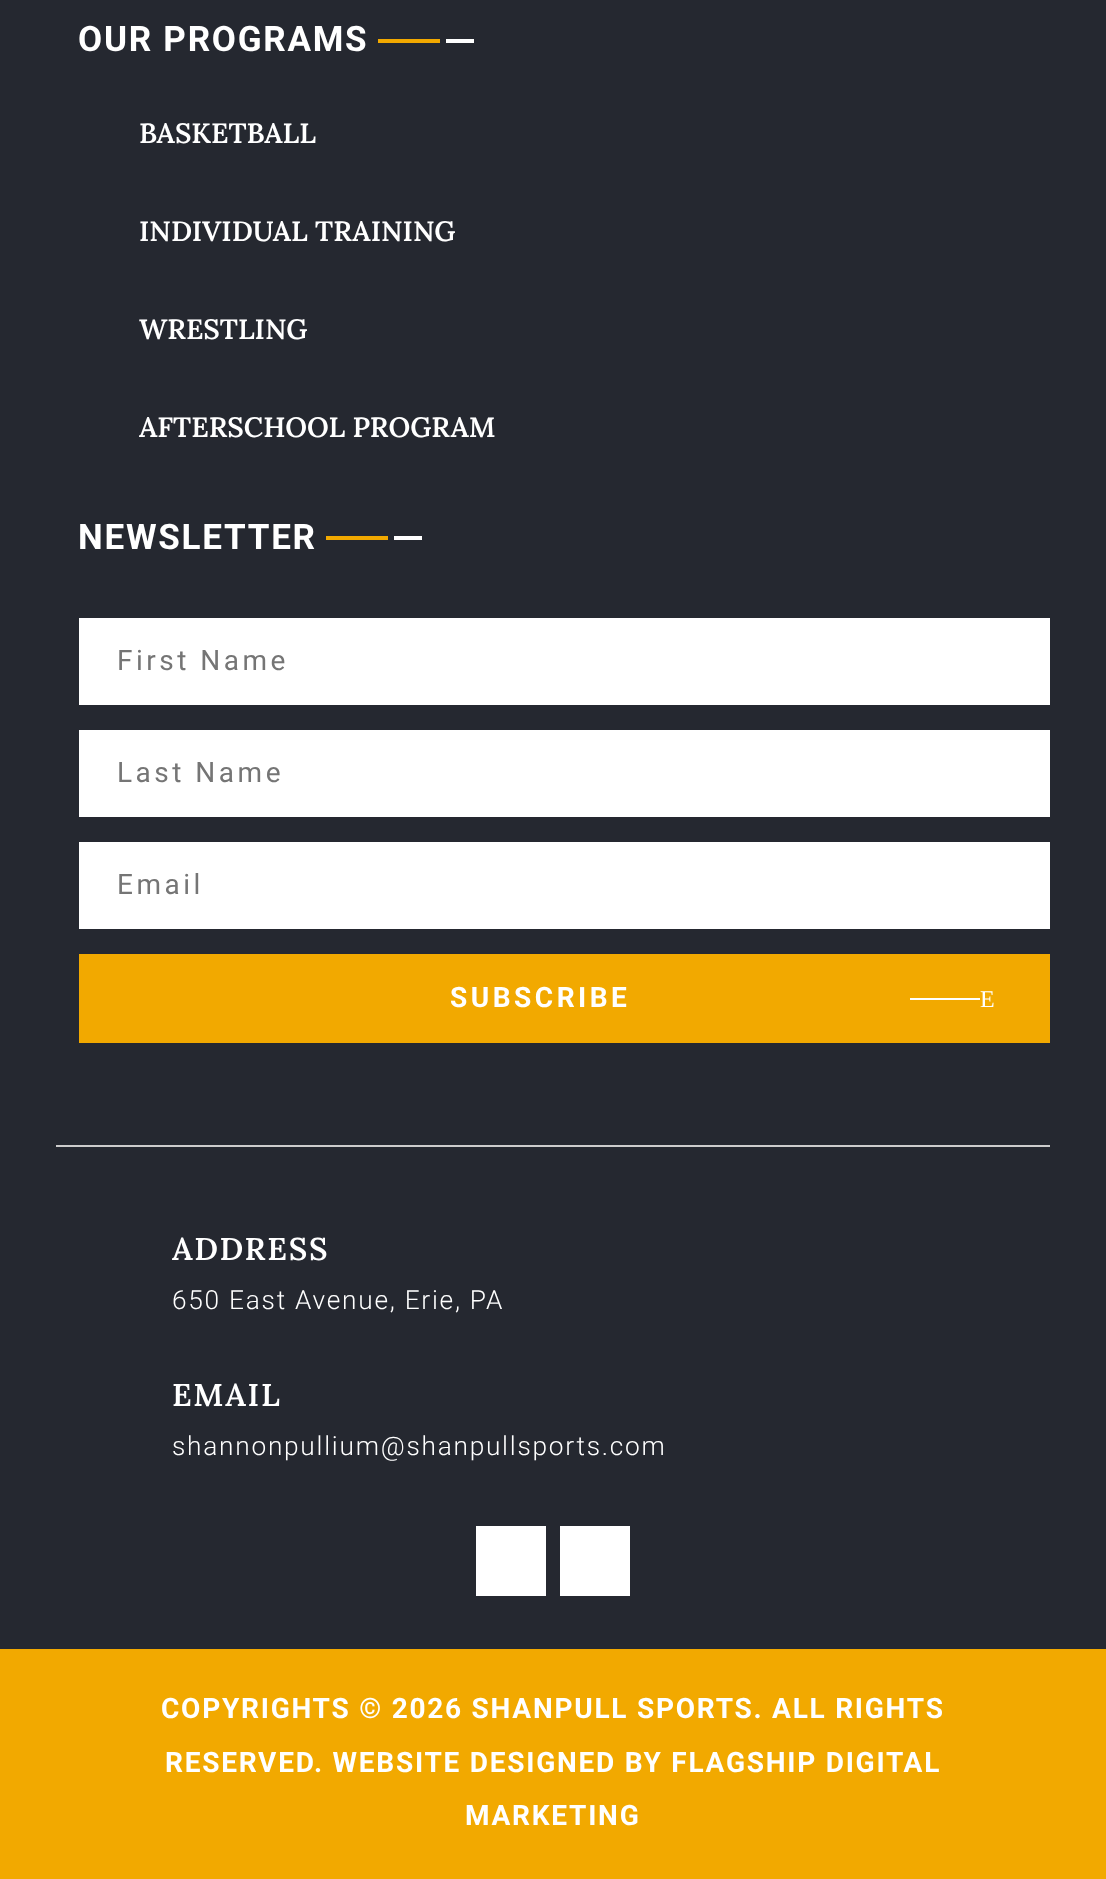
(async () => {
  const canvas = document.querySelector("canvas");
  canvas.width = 1106;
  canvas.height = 1879;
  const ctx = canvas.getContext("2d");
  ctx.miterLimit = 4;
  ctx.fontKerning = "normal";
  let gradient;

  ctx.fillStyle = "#252830";
  ctx.fillRect(0, 0, 1106, 1879);
  gradient = ctx.createLinearGradient(378, 40, 474, 40);
  gradient.addColorStop(0, "#f2a900");
  gradient.addColorStop(0.65, "#f2a900");
  gradient.addColorStop(0.65, "#252830");
  gradient.addColorStop(0.71, "#252830");
  gradient.addColorStop(0.71, "#ffffff");
  ctx.fillStyle = gradient;
  ctx.fillRect(378, 39, 96, 4);
  gradient = ctx.createLinearGradient(326, 537, 422, 537);
  gradient.addColorStop(0, "#f2a900");
  gradient.addColorStop(0.65, "#f2a900");
  gradient.addColorStop(0.65, "#252830");
  gradient.addColorStop(0.71, "#252830");
  gradient.addColorStop(0.71, "#ffffff");
  ctx.fillStyle = gradient;
  ctx.fillRect(326, 536, 96, 4);
  for (const [x, y, w, h, color] of [
    [79, 618, 971, 87, "#ffffff"],
    [79, 730, 971, 87, "#ffffff"],
    [79, 842, 971, 87, "#ffffff"],
    [79, 954, 971, 89, "#f2a900"],
    [910, 998, 70, 2, "#ffffff"],
    [56, 1145, 994, 2, "#cccccc"],
    [476, 1526, 70, 70, "#ffffff"],
    [560, 1526, 70, 70, "#ffffff"],
    [0, 1649, 1106, 230, "#f2a900"],
  ]) {
    ctx.fillStyle = color;
    ctx.fillRect(x, y, w, h);
  }
  ctx.letterSpacing = "1.75px";
  ctx.font = "bold 35px Roboto";
  ctx.fillStyle = "#ffffff";
  ctx.fillText("OUR PROGRAMS", 78, 51);
  ctx.letterSpacing = "0px";
  ctx.font = "600 28px Lora";
  for (const [text, x, y] of [
    ["BASKETBALL", 139, 143],
    ["INDIVIDUAL TRAINING", 139, 241],
    ["WRESTLING", 139, 339],
    ["AFTERSCHOOL PROGRAM", 139, 437],
  ]) {
    ctx.fillText(text, x, y);
  }
  ctx.letterSpacing = "1.75px";
  ctx.font = "bold 35px Roboto";
  ctx.fillText("NEWSLETTER", 78, 549);
  ctx.letterSpacing = "3.5px";
  ctx.font = "28px Roboto";
  ctx.fillStyle = "#757575";
  for (const [text, x, y] of [
    ["First Name", 117, 670],
    ["Last Name", 117, 782],
    ["Email", 117, 894],
  ]) {
    ctx.fillText(text, x, y);
  }
  ctx.font = "bold 28px Roboto";
  ctx.fillStyle = "#ffffff";
  ctx.fillText("SUBSCRIBE", 450, 1007);
  ctx.font = "24px Liberation Serif";
  ctx.fillText("E", 980, 1007);
  ctx.letterSpacing = "1.75px";
  ctx.font = "600 31.5px Lora";
  ctx.fillText("ADDRESS", 172, 1260);
  ctx.font = "300 26.25px Roboto";
  ctx.fillText("650 East Avenue, Erie, PA", 172, 1309);
  ctx.font = "600 31.5px Lora";
  ctx.fillText("EMAIL", 172, 1406);
  ctx.font = "300 26.25px Roboto";
  ctx.fillText("shannonpullium@shanpullsports.com", 172, 1455);
  ctx.font = "bold 28px Roboto";
  for (const [text, x, y] of [
    ["COPYRIGHTS © 2026 SHANPULL SPORTS. ALL RIGHTS", 161, 1718],
    ["RESERVED. WEBSITE DESIGNED BY FLAGSHIP DIGITAL", 165, 1772],
    ["MARKETING", 465, 1825],
  ]) {
    ctx.fillText(text, x, y);
  }
})();
